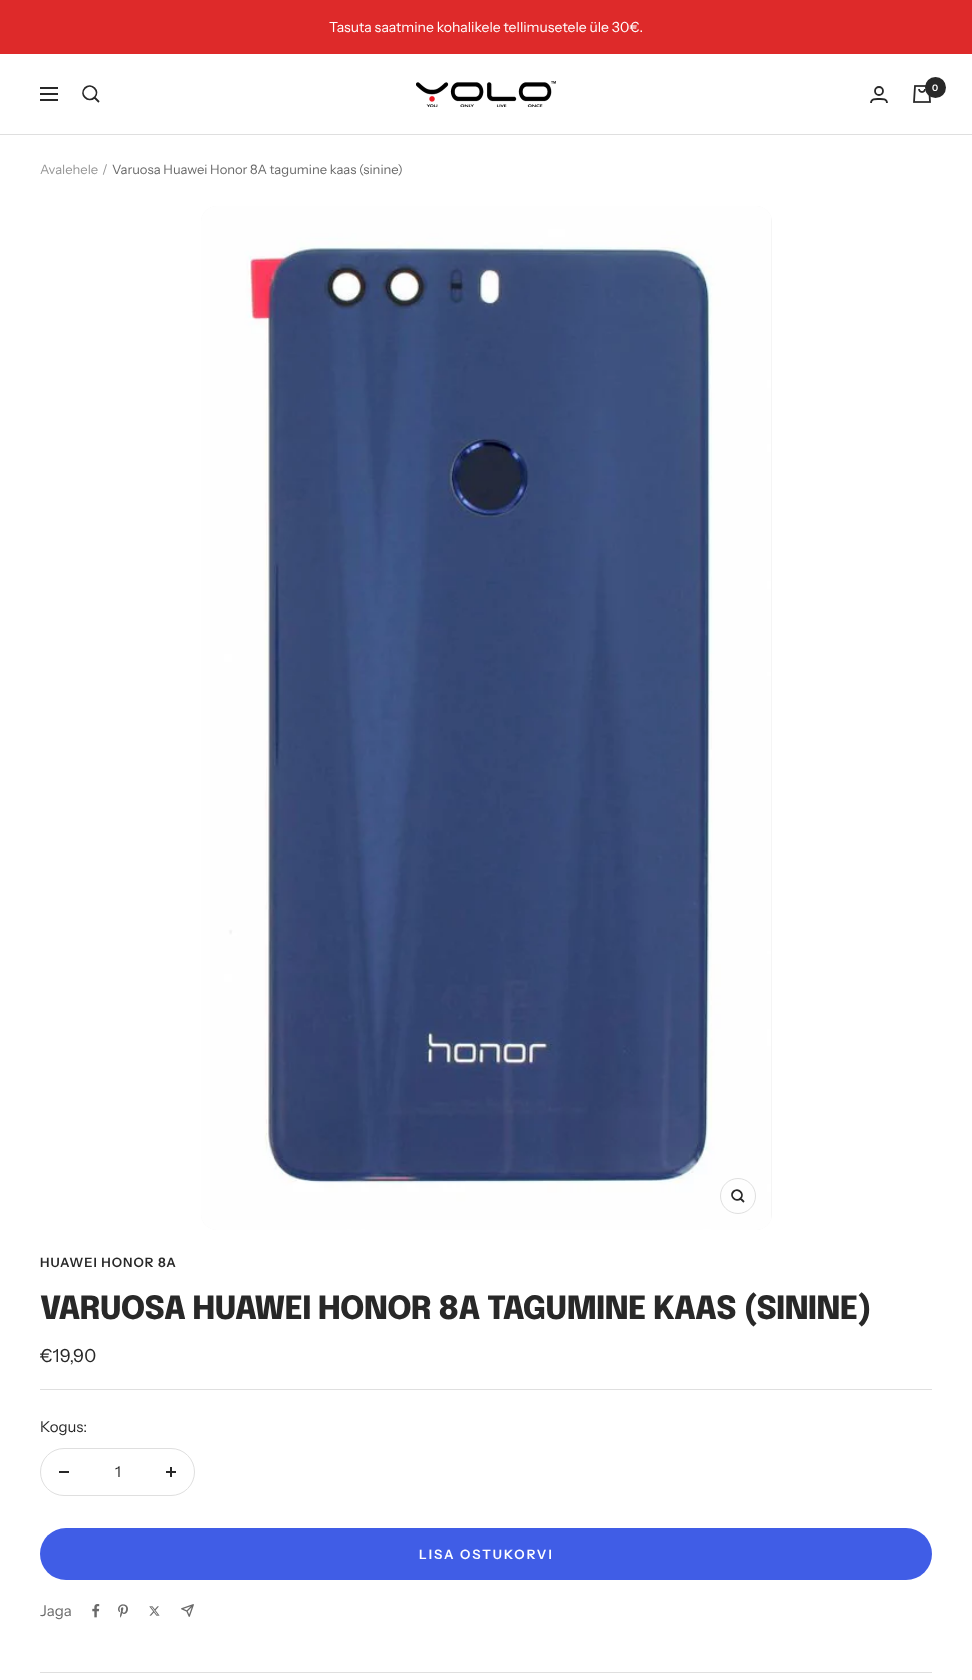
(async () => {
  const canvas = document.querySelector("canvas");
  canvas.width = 972;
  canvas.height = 1680;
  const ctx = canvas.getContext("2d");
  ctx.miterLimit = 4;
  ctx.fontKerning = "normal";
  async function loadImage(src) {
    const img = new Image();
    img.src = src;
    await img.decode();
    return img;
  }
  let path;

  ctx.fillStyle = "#ffffff";
  ctx.fillRect(0, 0, 972, 1680);
  ctx.fillStyle = "#de2a2a";
  ctx.fillRect(0, 0, 972, 54);
  ctx.fillStyle = "#dfdfdf";
  ctx.fillRect(0, 134, 972, 1);
  path = new Path2D("M40 88H58M40 100H58ZM40 94H58ZM94.5 97.5C100.5 91 91.5 82 85 88C79 94.5 88 103.5 94.5 97.5ZM94.5 97.5L99 102");
  ctx.strokeStyle = "#282828";
  ctx.lineWidth = 1.8;
  ctx.stroke(path);
  ctx.drawImage(await loadImage("img/1.png"), 416, 81, 140, 26);
  ctx.beginPath();
  ctx.arc(879, 91, 4, 0, Math.PI * 2);
  ctx.stroke();
  path = new Path2D("M871 103C871 98.5 876 99 879 99C882 99 887 98.5 887 103");
  ctx.stroke(path);
  ctx.drawImage(await loadImage("img/2.png"), 913, 85, 18, 18);
  ctx.fillStyle = "#282828";
  ctx.beginPath();
  ctx.arc(935.5, 87.5, 10.5, 0, Math.PI * 2);
  ctx.fill();
  ctx.fillStyle = "#f5f5f5";
  ctx.beginPath();
  ctx.roundRect(201, 206, 571, 1024, 16);
  ctx.fill();
  ctx.drawImage(await loadImage("img/3.png"), 201, 206, 570, 1024);
  ctx.beginPath();
  ctx.arc(738, 1196, 17.5, 0, Math.PI * 2);
  ctx.strokeStyle = "#dfdfdf";
  ctx.lineWidth = 1;
  ctx.stroke();
  path = new Path2D("M740.5 1198.5C745 1194 738 1187 733.5 1191.5C729 1196 736 1203 740.5 1198.5ZM740.5 1198.5L744 1202");
  ctx.strokeStyle = "#282828";
  ctx.lineWidth = 1.8;
  ctx.stroke(path);
  ctx.fillStyle = "#dfdfdf";
  ctx.fillRect(40, 1389, 892, 1);
  ctx.beginPath();
  ctx.roundRect(40.5, 1448.5, 154, 47, 23.5);
  ctx.strokeStyle = "#dfdfdf";
  ctx.lineWidth = 1;
  ctx.stroke();
  ctx.fillStyle = "#282828";
  ctx.fillRect(59, 1471, 10, 2);
  ctx.drawImage(await loadImage("img/4.png"), 166, 1467, 10, 10);
  ctx.fillStyle = "#405de6";
  ctx.beginPath();
  ctx.roundRect(40, 1528, 892, 52, 26);
  ctx.fill();
  ctx.drawImage(await loadImage("img/5.png"), 92, 1604, 8, 14);
  ctx.drawImage(await loadImage("img/6.png"), 118, 1604, 10, 14);
  ctx.drawImage(await loadImage("img/7.png"), 149, 1606, 11, 10);
  ctx.drawImage(await loadImage("img/8.png"), 181, 1604, 13, 13);
  ctx.fillStyle = "#dfdfdf";
  ctx.fillRect(40, 1672, 892, 1);
  ctx.font = "14px Instrument Sans";
  ctx.fillStyle = "#ffffff";
  ctx.fillText("Tasuta saatmine kohalikele tellimusetele üle 30€.", 329, 32);
  ctx.font = "600 9px Instrument Sans";
  ctx.fillText("0", 932, 91);
  ctx.font = "13px Instrument Sans";
  ctx.fillStyle = "#969696";
  ctx.fillText("Avalehele", 40, 174);
  ctx.fillText("/", 102, 174);
  ctx.fillStyle = "#696969";
  ctx.fillText("Varuosa Huawei Honor 8A tagumine kaas (sinine)", 112, 174);
  ctx.letterSpacing = "1px";
  ctx.font = "600 13px Instrument Sans";
  ctx.fillStyle = "#282828";
  ctx.fillText("HUAWEI HONOR 8A", 40, 1267);
  ctx.letterSpacing = "-0.8px";
  ctx.font = "800 32px Epilogue";
  ctx.fillText("VARUOSA HUAWEI HONOR 8A TAGUMINE KAAS (SININE)", 40, 1319);
  ctx.letterSpacing = "0px";
  ctx.font = "18px Instrument Sans";
  ctx.fillText("€19,90", 40, 1362);
  ctx.font = "15px Instrument Sans";
  ctx.fillText("Kogus:", 40, 1432);
  ctx.fillText("1", 115, 1477);
  ctx.letterSpacing = "2px";
  ctx.font = "600 13px Instrument Sans";
  ctx.fillStyle = "#ffffff";
  ctx.fillText("LISA OSTUKORVI", 419, 1559);
  ctx.letterSpacing = "0px";
  ctx.font = "15px Instrument Sans";
  ctx.fillStyle = "#696969";
  ctx.fillText("Jaga", 40, 1616);
})();
